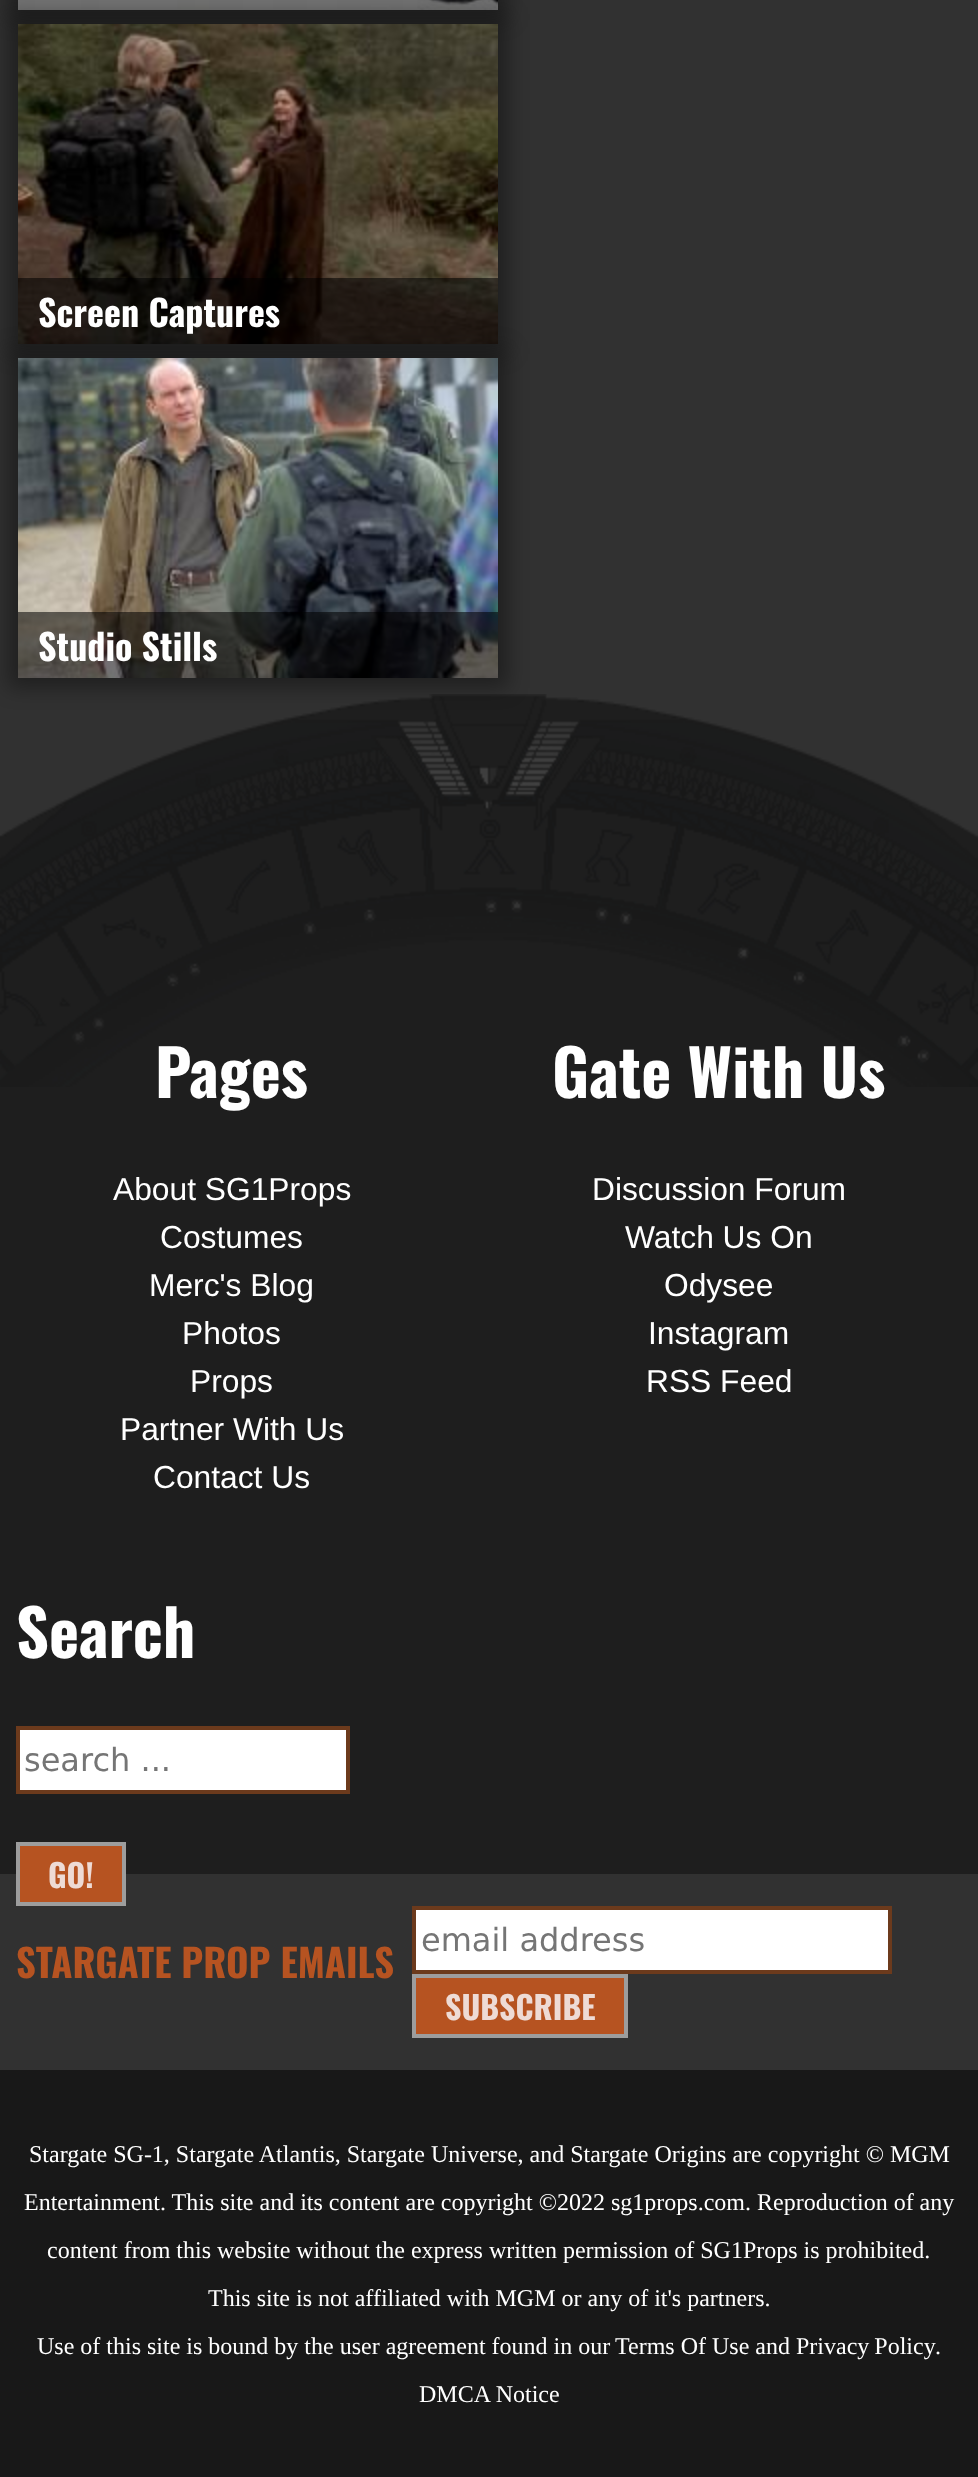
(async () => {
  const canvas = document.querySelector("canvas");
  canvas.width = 978;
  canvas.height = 2477;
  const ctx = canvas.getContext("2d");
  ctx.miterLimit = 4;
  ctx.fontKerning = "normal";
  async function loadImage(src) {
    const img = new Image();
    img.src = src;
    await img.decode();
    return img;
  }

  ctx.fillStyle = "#313131";
  ctx.fillRect(0, 0, 978, 2477);
  ctx.fillStyle = "rgba(0, 0, 0, 0.35)";
  ctx.filter = "blur(10px)";
  ctx.beginPath();
  ctx.rect(8, -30, 500, 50);
  ctx.fill();
  ctx.filter = "none";
  ctx.drawImage(await loadImage("img/1.png"), 18, 0, 480, 10);
  ctx.filter = "blur(10px)";
  ctx.beginPath();
  ctx.rect(8, 14, 500, 340);
  ctx.fill();
  ctx.filter = "none";
  ctx.drawImage(await loadImage("img/2.png"), 18, 24, 480, 320);
  ctx.fillStyle = "rgba(0, 0, 0, 0.55)";
  ctx.fillRect(18, 278, 480, 66);
  ctx.drawImage(await loadImage("img/4.png"), 0, 694, 978, 393);
  ctx.fillStyle = "rgba(0, 0, 0, 0.35)";
  ctx.filter = "blur(10px)";
  ctx.beginPath();
  ctx.rect(8, 348, 500, 340);
  ctx.fill();
  ctx.filter = "none";
  ctx.drawImage(await loadImage("img/3.png"), 18, 358, 480, 320);
  ctx.fillStyle = "rgba(0, 0, 0, 0.55)";
  ctx.fillRect(18, 612, 480, 66);
  ctx.fillStyle = "#1e1e1e";
  ctx.fillRect(0, 1087, 978, 787);
  ctx.fillStyle = "#ffffff";
  ctx.beginPath();
  ctx.rect(18, 1728, 330, 64);
  ctx.fill();
  ctx.strokeStyle = "#6c3a1c";
  ctx.lineWidth = 4;
  ctx.stroke();
  ctx.fillStyle = "#b65321";
  ctx.beginPath();
  ctx.rect(18, 1844, 106, 60);
  ctx.fill();
  ctx.strokeStyle = "#9d9d9d";
  ctx.stroke();
  ctx.fillStyle = "#ffffff";
  ctx.beginPath();
  ctx.rect(414, 1908, 476, 64);
  ctx.fill();
  ctx.strokeStyle = "#6c3a1c";
  ctx.stroke();
  ctx.fillStyle = "#b65321";
  ctx.beginPath();
  ctx.rect(414, 1976, 212, 60);
  ctx.fill();
  ctx.strokeStyle = "#9d9d9d";
  ctx.stroke();
  ctx.fillStyle = "#181818";
  ctx.fillRect(0, 2070, 978, 407);
  ctx.font = "bold 36px Oswald";
  ctx.fillStyle = "#ffffff";
  ctx.fillText("Screen Captures", 38, 327);
  ctx.fillText("Studio Stills", 38, 661);
  ctx.font = "bold 64px Oswald";
  ctx.fillText("Pages", 155, 1098);
  ctx.font = "31.75px Liberation Sans";
  for (const [text, x, y] of [
    ["About SG1Props", 113, 1200],
    ["Costumes", 160, 1248],
    ["Merc's Blog", 149, 1296],
    ["Photos", 182, 1344],
    ["Props", 190, 1392],
    ["Partner With Us", 120, 1440],
    ["Contact Us", 153, 1488],
  ]) {
    ctx.fillText(text, x, y);
  }
  ctx.font = "bold 64px Oswald";
  ctx.fillText("Gate With Us", 552, 1098);
  ctx.font = "31.75px Liberation Sans";
  for (const [text, x, y] of [
    ["Discussion Forum", 592, 1200],
    ["Watch Us On", 625, 1248],
    ["Odysee", 664, 1296],
    ["Instagram", 648, 1344],
    ["RSS Feed", 646, 1392],
  ]) {
    ctx.fillText(text, x, y);
  }
  ctx.font = "bold 64px Oswald";
  ctx.fillText("Search", 16, 1658);
  ctx.font = "32px DejaVu Sans";
  ctx.fillStyle = "#757575";
  ctx.fillText("search ...", 24, 1771);
  ctx.font = "bold 32px Oswald";
  ctx.fillStyle = "#eedbd5";
  ctx.fillText("GO!", 48, 1888);
  ctx.font = "bold 38.5px Oswald";
  ctx.fillStyle = "#b65321";
  ctx.fillText("STARGATE PROP EMAILS", 16, 1978);
  ctx.font = "32px DejaVu Sans";
  ctx.fillStyle = "#757575";
  ctx.fillText("email address", 421, 1951);
  ctx.font = "bold 32px Oswald";
  ctx.fillStyle = "#eedbd5";
  ctx.fillText("SUBSCRIBE", 445, 2020);
  ctx.font = "24px Liberation Serif";
  ctx.fillStyle = "#ffffff";
  for (const [text, x, y] of [
    ["Stargate SG-1, Stargate Atlantis, Stargate Universe, and Stargate Origins are copyright © MGM", 29, 2162],
    ["Entertainment. This site and its content are copyright ©2022 sg1props.com. Reproduction of any", 24, 2210],
    ["content from this website without the express written permission of SG1Props is prohibited.", 47, 2258],
    ["This site is not affiliated with MGM or any of it's partners.", 208, 2306],
    ["Use of this site is bound by the user agreement found in our", 37, 2354],
    ["Terms Of Use and", 615, 2354],
  ]) {
    ctx.fillText(text, x, y);
  }
  ctx.wordSpacing = "-1px";
  ctx.fillText("Privacy Policy", 796, 2354);
  ctx.wordSpacing = "0px";
  ctx.fillText(".", 935, 2354);
  ctx.fillText("DMCA Notice", 419, 2402);
})();
